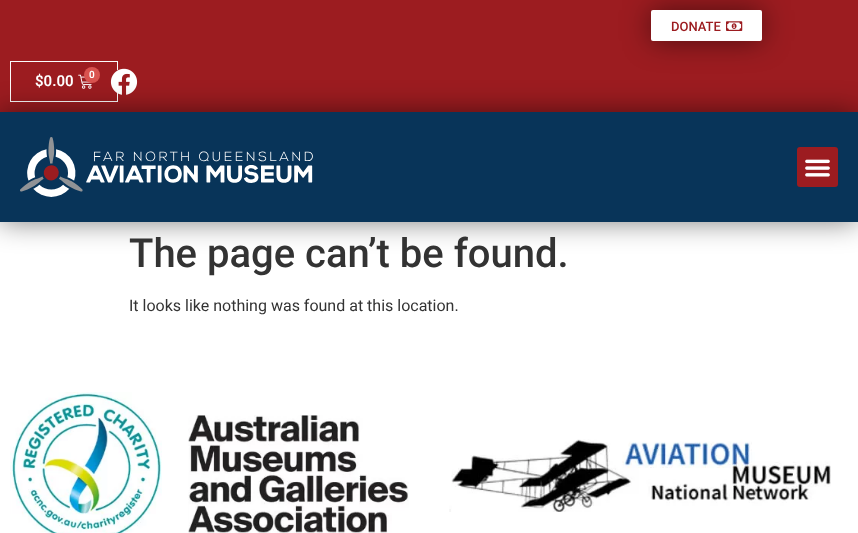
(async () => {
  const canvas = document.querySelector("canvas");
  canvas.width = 858;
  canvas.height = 533;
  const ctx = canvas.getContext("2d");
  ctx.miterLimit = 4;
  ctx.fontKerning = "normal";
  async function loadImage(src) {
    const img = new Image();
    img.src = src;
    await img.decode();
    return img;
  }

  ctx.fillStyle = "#ffffff";
  ctx.fillRect(0, 0, 858, 533);
  ctx.fillStyle = "#9c1c20";
  ctx.fillRect(0, 0, 858, 112);
  ctx.fillStyle = "rgba(0, 0, 0, 0.5)";
  ctx.filter = "blur(14.5px)";
  ctx.beginPath();
  ctx.roundRect(651, 10, 111, 31, 2);
  ctx.fill();
  ctx.filter = "none";
  ctx.fillStyle = "#ffffff";
  ctx.beginPath();
  ctx.roundRect(651, 10, 111, 31, 2);
  ctx.fill();
  ctx.drawImage(await loadImage("img/1.png"), 726, 21, 17, 10);
  ctx.strokeStyle = "#fcfcfc";
  ctx.strokeRect(10.5, 61.5, 107, 40);
  ctx.drawImage(await loadImage("img/2.png"), 78, 74, 14, 15);
  ctx.fillStyle = "#d9534f";
  ctx.beginPath();
  ctx.arc(92, 75, 8, 0, Math.PI * 2);
  ctx.fill();
  ctx.fillStyle = "#9c1c20";
  ctx.beginPath();
  ctx.arc(124.5, 81.5, 13.5, 0, Math.PI * 2);
  ctx.fill();
  ctx.drawImage(await loadImage("img/3.png"), 110, 68, 28, 27);
  ctx.fillStyle = "rgba(0, 0, 0, 0.5)";
  ctx.filter = "blur(14px)";
  ctx.beginPath();
  ctx.rect(0, 112, 858, 110);
  ctx.fill();
  ctx.filter = "none";
  ctx.fillStyle = "#083459";
  ctx.fillRect(0, 112, 858, 110);
  ctx.drawImage(await loadImage("img/4.png"), 20, 137, 293, 60);
  ctx.fillStyle = "#9c1c20";
  ctx.beginPath();
  ctx.roundRect(797, 147, 41, 40, 3);
  ctx.fill();
  ctx.drawImage(await loadImage("img/5.png"), 805, 159, 25, 18);
  ctx.drawImage(await loadImage("img/6.png"), 10, 392, 152, 141);
  ctx.drawImage(await loadImage("img/7.png"), 188, 415, 221, 118);
  ctx.drawImage(await loadImage("img/8.png"), 449, 439, 382, 73);
  ctx.font = "500 13px Roboto";
  ctx.fillText("DONATE", 671, 31);
  ctx.font = "600 15px Roboto";
  ctx.fillStyle = "#ffffff";
  ctx.fillText("$0.00", 35, 86);
  ctx.font = "600 10px Roboto";
  ctx.fillText("0", 89, 78);
  ctx.font = "500 40px Roboto";
  ctx.fillStyle = "#333333";
  ctx.fillText("The page can’t be found.", 129, 267);
  ctx.font = "16px Roboto";
  ctx.fillText("It looks like nothing was found at this location.", 129, 311);
})();
